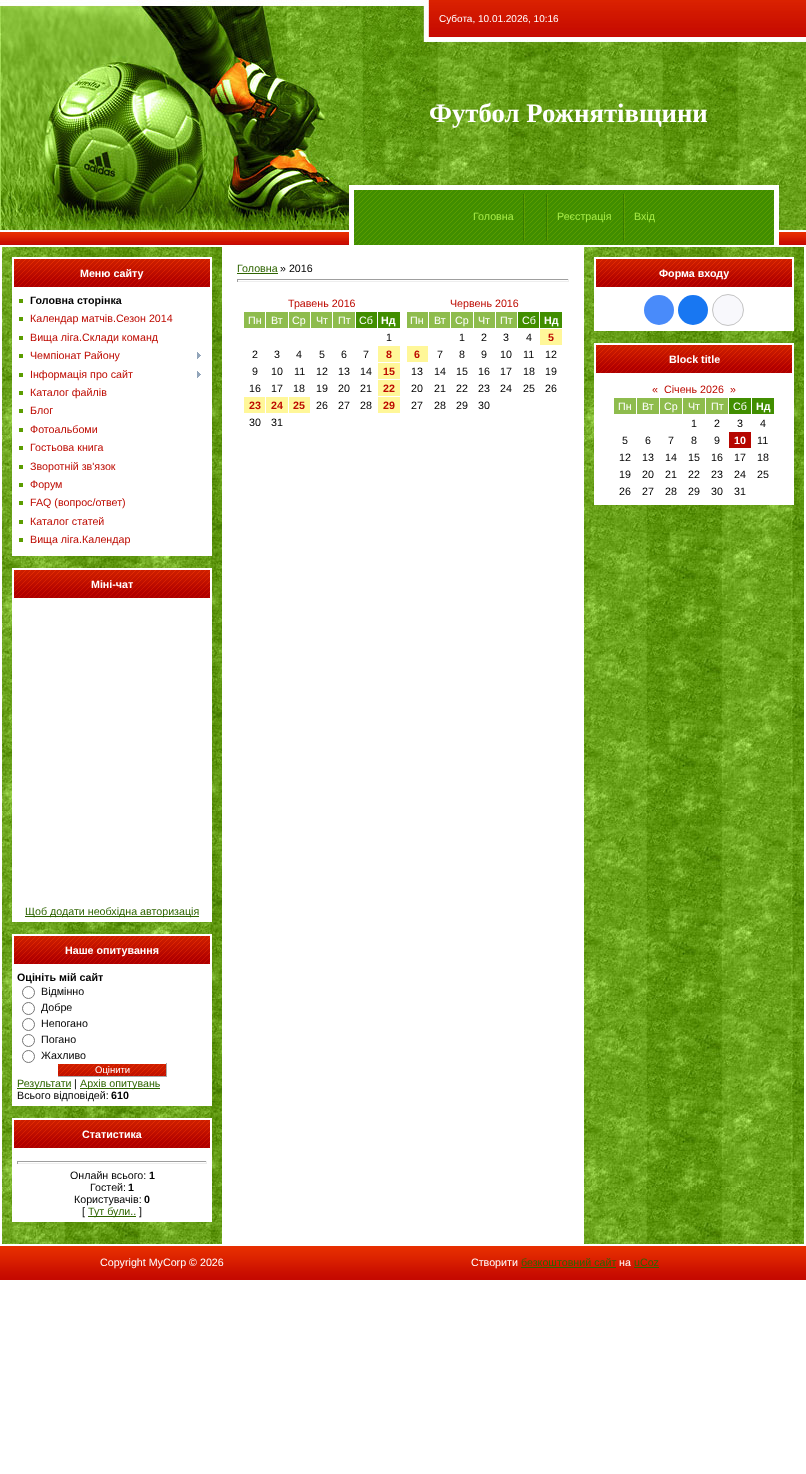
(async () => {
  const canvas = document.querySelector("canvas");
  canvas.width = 806;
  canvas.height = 1474;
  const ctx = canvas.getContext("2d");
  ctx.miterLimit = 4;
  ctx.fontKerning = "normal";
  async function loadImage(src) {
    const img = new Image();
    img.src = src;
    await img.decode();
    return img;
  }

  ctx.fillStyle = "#ffffff";
  ctx.fillRect(0, 0, 806, 1474);
  ctx.drawImage(await loadImage("img/1.png"), 0, 0, 806, 247);
  ctx.drawImage(await loadImage("img/2.png"), 0, 0, 349, 232);
  ctx.drawImage(await loadImage("img/3.png"), 349, 0, 80, 185);
  ctx.drawImage(await loadImage("img/4.png"), 354, 185, 420, 62);
  ctx.fillRect(774, 185, 5, 62);
  ctx.fillRect(349, 185, 5, 62);
  ctx.drawImage(await loadImage("img/5.png"), 523, 194, 2, 47);
  ctx.drawImage(await loadImage("img/5.png"), 546, 194, 2, 47);
  ctx.drawImage(await loadImage("img/5.png"), 623, 194, 2, 47);
  ctx.drawImage(await loadImage("img/6.png"), 2, 247, 220, 997);
  ctx.drawImage(await loadImage("img/7.png"), 12, 257, 200, 32);
  for (const [x, y, w, h, color] of [
    [12, 289, 200, 267, "#ffffff"],
    [19, 299, 4, 4, "#5b9d00"],
    [19, 317, 4, 4, "#5b9d00"],
    [19, 336, 4, 4, "#5b9d00"],
    [19, 354, 4, 4, "#5b9d00"],
  ]) {
    ctx.fillStyle = color;
    ctx.fillRect(x, y, w, h);
  }
  ctx.drawImage(await loadImage("img/8.png"), 197, 352, 4, 7);
  ctx.fillRect(19, 373, 4, 4);
  ctx.drawImage(await loadImage("img/8.png"), 197, 371, 4, 7);
  for (const [x, y, w, h, color] of [
    [19, 391, 4, 4, "#5b9d00"],
    [19, 409, 4, 4, "#5b9d00"],
    [19, 428, 4, 4, "#5b9d00"],
    [19, 446, 4, 4, "#5b9d00"],
    [19, 465, 4, 4, "#5b9d00"],
    [19, 483, 4, 4, "#5b9d00"],
    [19, 501, 4, 4, "#5b9d00"],
    [19, 520, 4, 4, "#5b9d00"],
    [19, 538, 4, 4, "#5b9d00"],
  ]) {
    ctx.fillStyle = color;
    ctx.fillRect(x, y, w, h);
  }
  ctx.drawImage(await loadImage("img/7.png"), 12, 568, 200, 32);
  ctx.fillStyle = "#ffffff";
  ctx.fillRect(12, 600, 200, 322);
  ctx.fillStyle = "#2e6400";
  ctx.fillRect(25, 916, 174, 1);
  ctx.drawImage(await loadImage("img/7.png"), 12, 934, 200, 32);
  ctx.fillStyle = "#ffffff";
  ctx.fillRect(12, 966, 200, 140);
  ctx.beginPath();
  ctx.arc(28.5, 992.5, 6, 0, Math.PI * 2);
  ctx.strokeStyle = "#767676";
  ctx.stroke();
  ctx.beginPath();
  ctx.arc(28.5, 1008.5, 6, 0, Math.PI * 2);
  ctx.stroke();
  ctx.beginPath();
  ctx.arc(28.5, 1024.5, 6, 0, Math.PI * 2);
  ctx.stroke();
  ctx.beginPath();
  ctx.arc(28.5, 1040.5, 6, 0, Math.PI * 2);
  ctx.stroke();
  ctx.beginPath();
  ctx.arc(28.5, 1056.5, 6, 0, Math.PI * 2);
  ctx.stroke();
  ctx.drawImage(await loadImage("img/9.png"), 58, 1064, 108, 12);
  for (const [x, y, w, h, color] of [
    [166, 1063, 1, 14, "#aaaaaa"],
    [57, 1076, 110, 1, "#aaaaaa"],
    [57, 1076, 1, 1, "#ffffff"],
    [17, 1088, 54, 1, "#2e6400"],
    [80, 1088, 80, 1, "#2e6400"],
  ]) {
    ctx.fillStyle = color;
    ctx.fillRect(x, y, w, h);
  }
  ctx.drawImage(await loadImage("img/7.png"), 12, 1118, 200, 32);
  for (const [x, y, w, h, color] of [
    [12, 1150, 200, 72, "#ffffff"],
    [17, 1161, 190, 1, "#9f9f9f"],
    [206, 1161, 1, 3, "#eeeeee"],
    [17, 1163, 190, 1, "#eeeeee"],
    [17, 1161, 1, 3, "#9f9f9f"],
    [88, 1216, 48, 1, "#2e6400"],
    [237, 273, 41, 1, "#2e6400"],
    [237, 279, 332, 1, "#9f9f9f"],
    [568, 279, 1, 3, "#eeeeee"],
    [237, 281, 332, 1, "#eeeeee"],
    [237, 279, 1, 3, "#9f9f9f"],
    [244, 312, 21, 16, "#8ebc4d"],
    [266, 312, 22, 16, "#8ebc4d"],
    [289, 312, 21, 16, "#8ebc4d"],
    [311, 312, 21, 16, "#8ebc4d"],
    [333, 312, 22, 16, "#8ebc4d"],
    [356, 312, 21, 16, "#418e00"],
    [378, 312, 22, 16, "#418e00"],
    [378, 346, 22, 16, "#fff799"],
    [378, 363, 22, 16, "#fff799"],
    [378, 380, 22, 16, "#fff799"],
    [244, 397, 21, 16, "#fff799"],
    [266, 397, 22, 16, "#fff799"],
    [289, 397, 21, 16, "#fff799"],
    [378, 397, 22, 16, "#fff799"],
    [407, 312, 21, 16, "#8ebc4d"],
    [429, 312, 21, 16, "#8ebc4d"],
    [451, 312, 22, 16, "#8ebc4d"],
    [474, 312, 21, 16, "#8ebc4d"],
    [496, 312, 21, 16, "#8ebc4d"],
    [518, 312, 21, 16, "#418e00"],
    [540, 312, 22, 16, "#418e00"],
    [540, 329, 22, 16, "#fff799"],
    [407, 346, 21, 16, "#fff799"],
  ]) {
    ctx.fillStyle = color;
    ctx.fillRect(x, y, w, h);
  }
  ctx.drawImage(await loadImage("img/6.png"), 584, 247, 220, 997);
  ctx.drawImage(await loadImage("img/7.png"), 594, 257, 200, 32);
  ctx.fillStyle = "#ffffff";
  ctx.fillRect(594, 289, 200, 42);
  ctx.fillStyle = "#498bfa";
  ctx.beginPath();
  ctx.arc(659, 310, 15, 0, Math.PI * 2);
  ctx.fill();
  ctx.fillStyle = "#1877f2";
  ctx.beginPath();
  ctx.arc(693, 310, 15, 0, Math.PI * 2);
  ctx.fill();
  ctx.fillStyle = "#f8f8fc";
  ctx.beginPath();
  ctx.arc(728, 310, 15.5, 0, Math.PI * 2);
  ctx.fill();
  ctx.strokeStyle = "#c4c4c4";
  ctx.stroke();
  ctx.drawImage(await loadImage("img/7.png"), 594, 343, 200, 32);
  for (const [x, y, w, h, color] of [
    [594, 375, 200, 130, "#ffffff"],
    [614, 398, 22, 16, "#8ebc4d"],
    [637, 398, 22, 16, "#8ebc4d"],
    [660, 398, 22, 16, "#8ebc4d"],
    [683, 398, 22, 16, "#8ebc4d"],
    [706, 398, 22, 16, "#8ebc4d"],
    [729, 398, 22, 16, "#418e00"],
    [752, 398, 22, 16, "#418e00"],
    [729, 432, 22, 16, "#b60600"],
  ]) {
    ctx.fillStyle = color;
    ctx.fillRect(x, y, w, h);
  }
  ctx.drawImage(await loadImage("img/10.png"), 0, 1244, 806, 36);
  ctx.fillStyle = "#2e6400";
  ctx.fillRect(521, 1267, 95, 1);
  ctx.fillRect(634, 1267, 25, 1);
  ctx.font = "10px Liberation Sans";
  ctx.fillStyle = "#ffffff";
  ctx.fillText("Субота, 10.01.2026, 10:16", 439, 22);
  ctx.font = "bold 26.75px Liberation Serif";
  ctx.fillText("Футбол Рожнятівщини", 429, 122);
  ctx.font = "10.7px Liberation Sans";
  ctx.fillStyle = "#a6eb47";
  for (const [text, x, y] of [
    ["Головна", 473, 220],
    ["Реєстрація", 557, 220],
    ["Вхід", 634, 220],
  ]) {
    ctx.fillText(text, x, y);
  }
  ctx.font = "bold 10.7px Liberation Sans";
  ctx.fillStyle = "#ffffff";
  ctx.fillText("Меню сайту", 80, 277);
  ctx.fillStyle = "#000000";
  ctx.fillText("Головна сторінка", 30, 304);
  ctx.font = "10.7px Liberation Sans";
  ctx.fillStyle = "#bd0a00";
  for (const [text, x, y] of [
    ["Календар матчів.Сезон 2014", 30, 322],
    ["Вища ліга.Склади команд", 30, 341],
    ["Чемпіонат Району", 30, 359],
    ["Інформація про сайт", 30, 378],
    ["Каталог файлів", 30, 396],
    ["Блог", 30, 414],
    ["Фотоальбоми", 30, 433],
    ["Гостьова книга", 30, 451],
    ["Зворотній зв'язок", 30, 470],
    ["Форум", 30, 488],
    ["FAQ (вопрос/ответ)", 30, 506],
    ["Каталог статей", 30, 525],
    ["Вища ліга.Календар", 30, 543],
  ]) {
    ctx.fillText(text, x, y);
  }
  ctx.font = "bold 10.7px Liberation Sans";
  ctx.fillStyle = "#ffffff";
  ctx.fillText("Міні-чат", 91, 588);
  ctx.font = "10.7px Liberation Sans";
  ctx.fillStyle = "#2e6400";
  ctx.fillText("Щоб додати необхідна авторизація", 25, 915);
  ctx.font = "bold 10.7px Liberation Sans";
  ctx.fillStyle = "#ffffff";
  ctx.fillText("Наше опитування", 65, 954);
  ctx.fillStyle = "#000000";
  ctx.fillText("Оцініть мій сайт", 17, 981);
  ctx.font = "10.7px Liberation Sans";
  for (const [text, x, y] of [
    ["Відмінно", 41, 995],
    ["Добре", 41, 1011],
    ["Непогано", 41, 1027],
    ["Погано", 41, 1043],
    ["Жахливо", 41, 1059],
  ]) {
    ctx.fillText(text, x, y);
  }
  ctx.font = "9.5px Liberation Sans";
  ctx.fillStyle = "#ffffff";
  ctx.fillText("Оцінити", 95, 1073);
  ctx.font = "10.7px Liberation Sans";
  ctx.fillStyle = "#2e6400";
  ctx.fillText("Результати", 17, 1087);
  ctx.fillStyle = "#000000";
  ctx.fillText("|", 74, 1087);
  ctx.fillStyle = "#2e6400";
  ctx.fillText("Архів опитувань", 80, 1087);
  ctx.fillStyle = "#000000";
  ctx.fillText("Всього відповідей:", 17, 1099);
  ctx.font = "bold 10.7px Liberation Sans";
  ctx.fillText("610", 111, 1099);
  ctx.fillStyle = "#ffffff";
  ctx.fillText("Статистика", 82, 1138);
  ctx.font = "10.7px Liberation Sans";
  ctx.fillStyle = "#000000";
  ctx.fillText("Онлайн всього:", 70, 1179);
  ctx.font = "bold 10.7px Liberation Sans";
  ctx.fillText("1", 149, 1179);
  ctx.font = "10.7px Liberation Sans";
  ctx.fillText("Гостей:", 90, 1191);
  ctx.font = "bold 10.7px Liberation Sans";
  ctx.fillText("1", 128, 1191);
  ctx.font = "10.7px Liberation Sans";
  ctx.fillText("Користувачів:", 74, 1203);
  ctx.font = "bold 10.7px Liberation Sans";
  ctx.fillText("0", 144, 1203);
  ctx.font = "10.7px Liberation Sans";
  ctx.fillText("[", 82, 1215);
  ctx.fillStyle = "#2e6400";
  ctx.fillText("Тут були..", 88, 1215);
  ctx.fillStyle = "#000000";
  ctx.fillText("]", 139, 1215);
  ctx.fillStyle = "#2e6400";
  ctx.fillText("Головна", 237, 272);
  ctx.fillStyle = "#000000";
  ctx.fillText("» 2016", 280, 272);
  ctx.fillStyle = "#bd0a00";
  ctx.fillText("Травень 2016", 288, 307);
  ctx.fillStyle = "#ffffff";
  for (const [text, x, y] of [
    ["Пн", 248, 324],
    ["Вт", 271, 324],
    ["Ср", 292, 324],
    ["Чт", 316, 324],
    ["Пт", 338, 324],
    ["Сб", 359, 324],
  ]) {
    ctx.fillText(text, x, y);
  }
  ctx.font = "bold 10.7px Liberation Sans";
  ctx.fillText("Нд", 381, 324);
  ctx.font = "10.7px Liberation Sans";
  ctx.fillStyle = "#000000";
  for (const [text, x, y] of [
    ["1", 386, 341],
    ["2", 252, 358],
    ["3", 274, 358],
    ["4", 296, 358],
    ["5", 319, 358],
    ["6", 341, 358],
    ["7", 363, 358],
  ]) {
    ctx.fillText(text, x, y);
  }
  ctx.font = "bold 10.7px Liberation Sans";
  ctx.fillStyle = "#bd0a00";
  ctx.fillText("8", 386, 358);
  ctx.font = "10.7px Liberation Sans";
  ctx.fillStyle = "#000000";
  for (const [text, x, y] of [
    ["9", 252, 375],
    ["10", 271, 375],
    ["11", 294, 375],
    ["12", 316, 375],
    ["13", 338, 375],
    ["14", 360, 375],
  ]) {
    ctx.fillText(text, x, y);
  }
  ctx.font = "bold 10.7px Liberation Sans";
  ctx.fillStyle = "#bd0a00";
  ctx.fillText("15", 383, 375);
  ctx.font = "10.7px Liberation Sans";
  ctx.fillStyle = "#000000";
  for (const [text, x, y] of [
    ["16", 249, 392],
    ["17", 271, 392],
    ["18", 293, 392],
    ["19", 316, 392],
    ["20", 338, 392],
    ["21", 360, 392],
  ]) {
    ctx.fillText(text, x, y);
  }
  ctx.font = "bold 10.7px Liberation Sans";
  ctx.fillStyle = "#bd0a00";
  for (const [text, x, y] of [
    ["22", 383, 392],
    ["23", 249, 409],
    ["24", 271, 409],
    ["25", 293, 409],
  ]) {
    ctx.fillText(text, x, y);
  }
  ctx.font = "10.7px Liberation Sans";
  ctx.fillStyle = "#000000";
  for (const [text, x, y] of [
    ["26", 316, 409],
    ["27", 338, 409],
    ["28", 360, 409],
  ]) {
    ctx.fillText(text, x, y);
  }
  ctx.font = "bold 10.7px Liberation Sans";
  ctx.fillStyle = "#bd0a00";
  ctx.fillText("29", 383, 409);
  ctx.font = "10.7px Liberation Sans";
  ctx.fillStyle = "#000000";
  ctx.fillText("30", 249, 426);
  ctx.fillText("31", 271, 426);
  ctx.fillStyle = "#bd0a00";
  ctx.fillText("Червень 2016", 450, 307);
  ctx.fillStyle = "#ffffff";
  for (const [text, x, y] of [
    ["Пн", 410, 324],
    ["Вт", 434, 324],
    ["Ср", 455, 324],
    ["Чт", 478, 324],
    ["Пт", 500, 324],
    ["Сб", 522, 324],
  ]) {
    ctx.fillText(text, x, y);
  }
  ctx.font = "bold 10.7px Liberation Sans";
  ctx.fillText("Нд", 544, 324);
  ctx.font = "10.7px Liberation Sans";
  ctx.fillStyle = "#000000";
  for (const [text, x, y] of [
    ["1", 459, 341],
    ["2", 481, 341],
    ["3", 503, 341],
    ["4", 526, 341],
  ]) {
    ctx.fillText(text, x, y);
  }
  ctx.font = "bold 10.7px Liberation Sans";
  ctx.fillStyle = "#bd0a00";
  ctx.fillText("5", 548, 341);
  ctx.fillText("6", 414, 358);
  ctx.font = "10.7px Liberation Sans";
  ctx.fillStyle = "#000000";
  for (const [text, x, y] of [
    ["7", 437, 358],
    ["8", 459, 358],
    ["9", 481, 358],
    ["10", 500, 358],
    ["11", 523, 358],
    ["12", 545, 358],
    ["13", 411, 375],
    ["14", 434, 375],
    ["15", 456, 375],
    ["16", 478, 375],
    ["17", 500, 375],
    ["18", 523, 375],
    ["19", 545, 375],
    ["20", 411, 392],
    ["21", 434, 392],
    ["22", 456, 392],
    ["23", 478, 392],
    ["24", 500, 392],
    ["25", 523, 392],
    ["26", 545, 392],
    ["27", 411, 409],
    ["28", 434, 409],
    ["29", 456, 409],
    ["30", 478, 409],
  ]) {
    ctx.fillText(text, x, y);
  }
  ctx.font = "bold 10.7px Liberation Sans";
  ctx.fillStyle = "#ffffff";
  ctx.fillText("Форма входу", 659, 277);
  ctx.fillText("Block title", 669, 363);
  ctx.font = "10.7px Liberation Sans";
  ctx.fillStyle = "#bd0a00";
  for (const [text, x, y] of [
    ["«", 652, 393],
    ["Січень 2026", 664, 393],
    ["»", 730, 393],
  ]) {
    ctx.fillText(text, x, y);
  }
  ctx.fillStyle = "#ffffff";
  for (const [text, x, y] of [
    ["Пн", 618, 410],
    ["Вт", 642, 410],
    ["Ср", 664, 410],
    ["Чт", 688, 410],
    ["Пт", 711, 410],
    ["Сб", 733, 410],
  ]) {
    ctx.fillText(text, x, y);
  }
  ctx.font = "bold 10.7px Liberation Sans";
  ctx.fillText("Нд", 756, 410);
  ctx.font = "10.7px Liberation Sans";
  ctx.fillStyle = "#000000";
  for (const [text, x, y] of [
    ["1", 691, 427],
    ["2", 714, 427],
    ["3", 737, 427],
    ["4", 760, 427],
    ["5", 622, 444],
    ["6", 645, 444],
    ["7", 668, 444],
    ["8", 691, 444],
    ["9", 714, 444],
  ]) {
    ctx.fillText(text, x, y);
  }
  ctx.font = "bold 10.7px Liberation Sans";
  ctx.fillStyle = "#ffffff";
  ctx.fillText("10", 734, 444);
  ctx.font = "10.7px Liberation Sans";
  ctx.fillStyle = "#000000";
  for (const [text, x, y] of [
    ["11", 757, 444],
    ["12", 619, 461],
    ["13", 642, 461],
    ["14", 665, 461],
    ["15", 688, 461],
    ["16", 711, 461],
    ["17", 734, 461],
    ["18", 757, 461],
    ["19", 619, 478],
    ["20", 642, 478],
    ["21", 665, 478],
    ["22", 688, 478],
    ["23", 711, 478],
    ["24", 734, 478],
    ["25", 757, 478],
    ["26", 619, 495],
    ["27", 642, 495],
    ["28", 665, 495],
    ["29", 688, 495],
    ["30", 711, 495],
    ["31", 734, 495],
  ]) {
    ctx.fillText(text, x, y);
  }
  ctx.fillStyle = "#ffffff";
  ctx.fillText("Copyright MyCorp © 2026", 100, 1266);
  ctx.fillText("Створити", 471, 1266);
  ctx.fillStyle = "#2e6400";
  ctx.fillText("безкоштовний сайт", 521, 1266);
  ctx.fillStyle = "#ffffff";
  ctx.fillText("на", 619, 1266);
  ctx.fillStyle = "#2e6400";
  ctx.fillText("uCoz", 634, 1266);
})();
